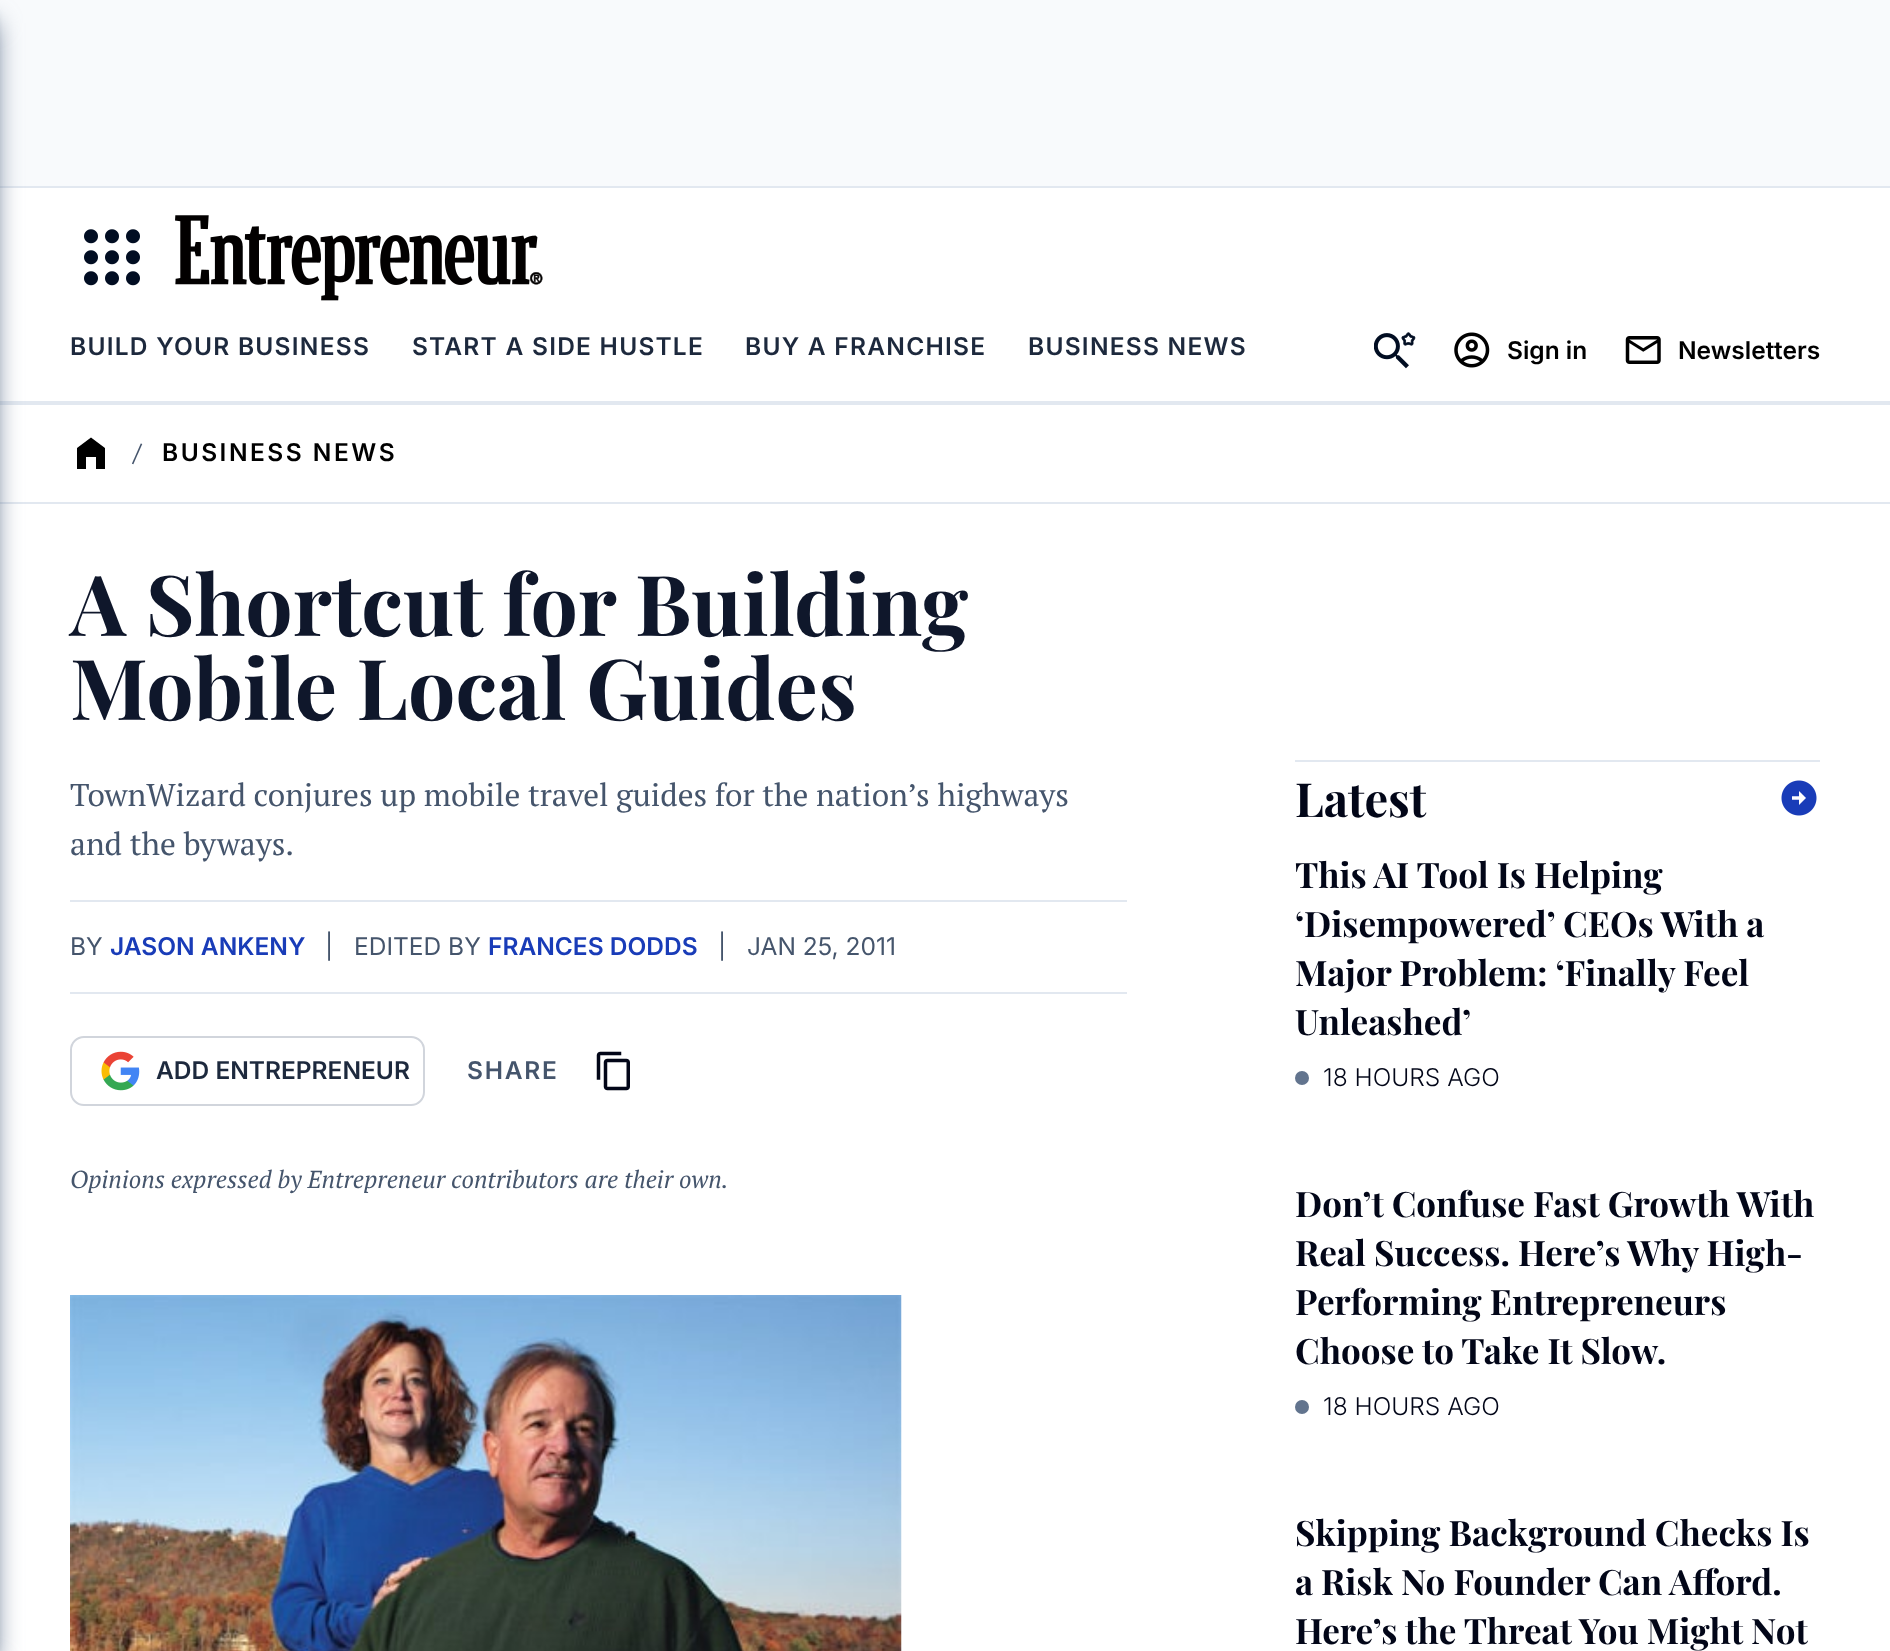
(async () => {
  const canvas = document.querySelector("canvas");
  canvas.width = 1890;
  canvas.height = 1651;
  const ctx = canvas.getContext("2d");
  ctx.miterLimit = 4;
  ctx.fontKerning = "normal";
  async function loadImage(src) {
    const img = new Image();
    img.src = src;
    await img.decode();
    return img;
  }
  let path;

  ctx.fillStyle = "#ffffff";
  ctx.fillRect(0, 0, 1890, 1651);
  for (const [x, y, w, h, color] of [
    [0, 0, 1890, 186, "#f8fafc"],
    [0, 186, 1890, 2, "#e2e8f0"],
    [0, 401, 1890, 4, "#e2e8f0"],
    [0, 502, 1890, 2, "#e2e8f0"],
  ]) {
    ctx.fillStyle = color;
    ctx.fillRect(x, y, w, h);
  }
  ctx.fillStyle = "#62748e";
  ctx.filter = "blur(5px)";
  ctx.beginPath();
  ctx.rect(-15, 14, 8, 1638);
  ctx.fill();
  ctx.filter = "none";
  ctx.filter = "blur(13px)";
  ctx.beginPath();
  ctx.rect(-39, 23, 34, 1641);
  ctx.fill();
  ctx.filter = "none";
  ctx.drawImage(await loadImage("img/1.png"), 84, 229, 56, 57);
  ctx.drawImage(await loadImage("img/2.png"), 175, 215, 368, 86);
  ctx.drawImage(await loadImage("img/3.png"), 1374, 332, 42, 37);
  ctx.drawImage(await loadImage("img/4.png"), 1454, 332, 36, 36);
  ctx.drawImage(await loadImage("img/5.png"), 1625, 336, 36, 28);
  ctx.fillStyle = "#000000";
  path = new Path2D("M91 437.5L77 448V469H86V457H96V469H105V448Z");
  ctx.fill(path);
  ctx.fillStyle = "#e2e8f0";
  ctx.fillRect(70, 900, 1057, 2);
  ctx.fillRect(70, 992, 1057, 2);
  ctx.beginPath();
  ctx.roundRect(71, 1037, 353, 68, 13);
  ctx.strokeStyle = "#d1d5dc";
  ctx.lineWidth = 2;
  ctx.stroke();
  ctx.drawImage(await loadImage("img/6.png"), 101, 1051, 39, 40);
  ctx.drawImage(await loadImage("img/7.png"), 596, 1051, 34, 40);
  ctx.drawImage(await loadImage("img/8.png"), 70, 1295, 832, 356);
  ctx.fillRect(1295, 760, 525, 2);
  ctx.drawImage(await loadImage("img/9.png"), 1781, 780, 36, 36);
  ctx.fillStyle = "#62748e";
  ctx.beginPath();
  ctx.arc(1302, 1078, 7, 0, Math.PI * 2);
  ctx.fill();
  ctx.beginPath();
  ctx.arc(1302, 1407, 7, 0, Math.PI * 2);
  ctx.fill();
  ctx.letterSpacing = "1.25px";
  ctx.font = "600 24.5px Inter";
  ctx.fillStyle = "#1d293d";
  for (const [text, x, y] of [
    ["BUILD YOUR BUSINESS", 70, 355],
    ["START A SIDE HUSTLE", 412, 355],
    ["BUY A FRANCHISE", 745, 355],
    ["BUSINESS NEWS", 1028, 355],
  ]) {
    ctx.fillText(text, x, y);
  }
  ctx.letterSpacing = "0px";
  ctx.fillStyle = "#000000";
  ctx.fillText("Sign in", 1507, 359);
  ctx.fillText("Newsletters", 1678, 359);
  ctx.font = "bold 24.5px PT Serif";
  ctx.fillStyle = "#45556c";
  ctx.fillText("/", 133, 461);
  ctx.letterSpacing = "2.5px";
  ctx.font = "600 24.5px Inter";
  ctx.fillStyle = "#000000";
  ctx.fillText("BUSINESS NEWS", 162, 461);
  ctx.letterSpacing = "0px";
  ctx.font = "bold 84px Playfair Display";
  ctx.fillStyle = "#0f172b";
  ctx.fillText("A Shortcut for Building", 70, 636);
  ctx.fillText("Mobile Local Guides", 70, 720);
  ctx.font = "31.5px PT Serif";
  ctx.fillStyle = "#45556c";
  ctx.fillText("TownWizard conjures up mobile travel guides for the nation’s highways", 70, 806);
  ctx.fillText("and the byways.", 70, 855);
  ctx.font = "24.5px Inter";
  ctx.fillText("BY", 70, 955);
  ctx.font = "600 24.5px Inter";
  ctx.fillStyle = "#193cb8";
  ctx.fillText("JASON ANKENY", 110, 955);
  ctx.font = "24.5px Inter";
  ctx.fillStyle = "#45556c";
  ctx.fillText("|", 325, 955);
  ctx.fillText("EDITED BY", 354, 955);
  ctx.font = "600 24.5px Inter";
  ctx.fillStyle = "#193cb8";
  ctx.fillText("FRANCES DODDS", 488, 955);
  ctx.font = "24.5px Inter";
  ctx.fillStyle = "#45556c";
  ctx.fillText("|", 718, 955);
  ctx.fillText("JAN 25, 2011", 747, 955);
  ctx.font = "600 24.5px Inter";
  ctx.fillStyle = "#1d293d";
  ctx.fillText("ADD ENTREPRENEUR", 156, 1079);
  ctx.letterSpacing = "1.75px";
  ctx.fillStyle = "#45556c";
  ctx.fillText("SHARE", 467, 1079);
  ctx.letterSpacing = "0px";
  ctx.font = "italic 24.5px PT Serif";
  ctx.fillText("Opinions expressed by Entrepreneur contributors are their own.", 70, 1188);
  ctx.font = "bold 47px Playfair Display";
  ctx.fillStyle = "#020618";
  ctx.fillText("Latest", 1295, 817);
  ctx.font = "bold 35px Playfair Display";
  for (const [text, x, y] of [
    ["This AI Tool Is Helping", 1295, 888],
    ["‘Disempowered’ CEOs With a", 1295, 937],
    ["Major Problem: ‘Finally Feel", 1295, 986],
    ["Unleashed’", 1295, 1035],
  ]) {
    ctx.fillText(text, x, y);
  }
  ctx.font = "300 24.5px Inter";
  ctx.fillText("18 HOURS AGO", 1323, 1086);
  ctx.font = "bold 35px Playfair Display";
  for (const [text, x, y] of [
    ["Don’t Confuse Fast Growth With", 1295, 1217],
    ["Real Success. Here’s Why High-", 1295, 1266],
    ["Performing Entrepreneurs", 1295, 1315],
    ["Choose to Take It Slow.", 1295, 1364],
  ]) {
    ctx.fillText(text, x, y);
  }
  ctx.font = "300 24.5px Inter";
  ctx.fillText("18 HOURS AGO", 1323, 1415);
  ctx.font = "bold 35px Playfair Display";
  for (const [text, x, y] of [
    ["Skipping Background Checks Is", 1295, 1546],
    ["a Risk No Founder Can Afford.", 1295, 1595],
    ["Here’s the Threat You Might Not", 1295, 1644],
  ]) {
    ctx.fillText(text, x, y);
  }
})();
